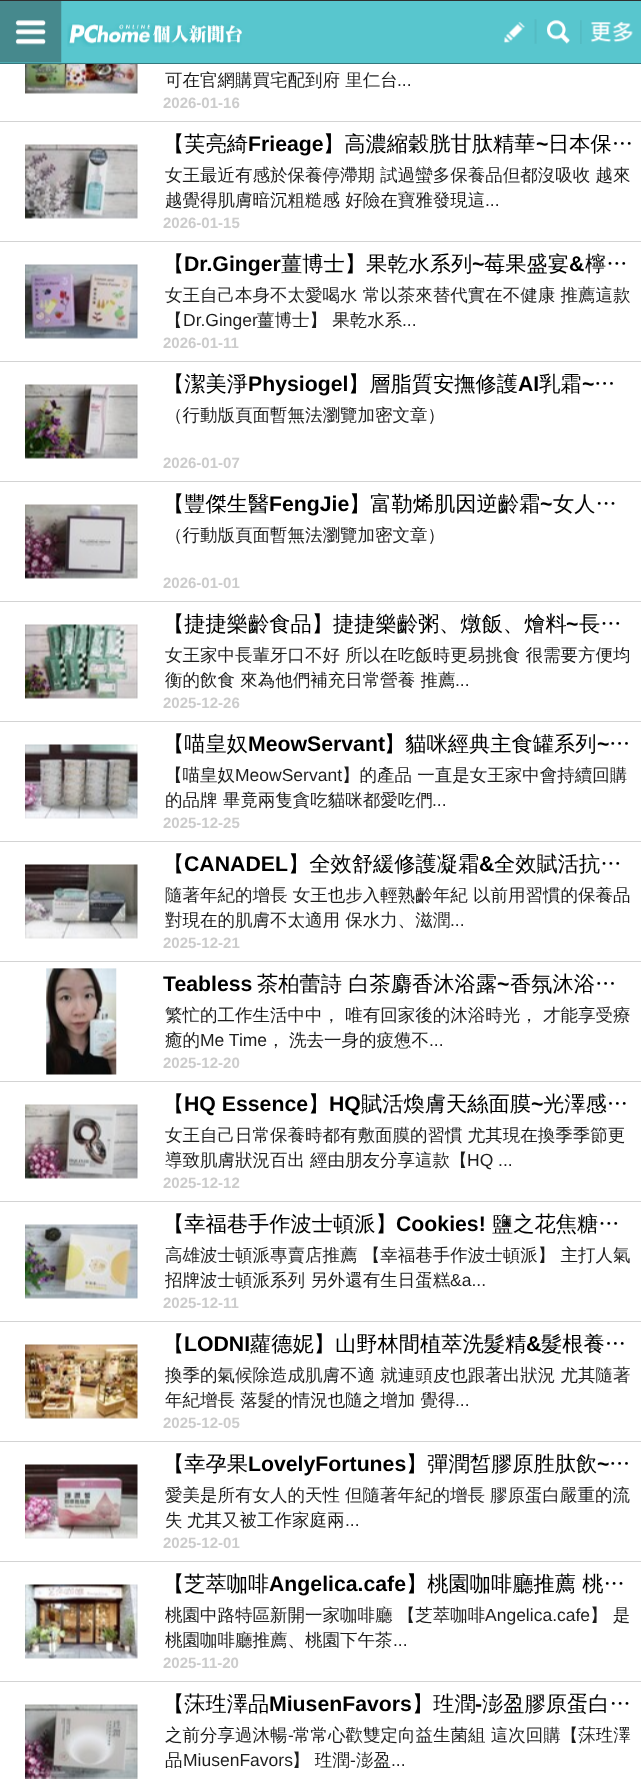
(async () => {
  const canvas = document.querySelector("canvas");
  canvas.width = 641;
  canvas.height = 1783;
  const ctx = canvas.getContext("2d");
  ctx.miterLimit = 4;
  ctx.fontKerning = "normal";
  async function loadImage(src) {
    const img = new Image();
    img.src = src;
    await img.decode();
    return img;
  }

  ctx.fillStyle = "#ffffff";
  ctx.fillRect(0, 0, 641, 1783);
  for (const [x, y, w, h, color] of [
    [0, 1, 641, 62, "#58c6ce"],
    [0, 0, 641, 1, "#2f2f2f"],
    [0, 63, 641, 1, "#34787d"],
  ]) {
    ctx.fillStyle = color;
    ctx.fillRect(x, y, w, h);
  }
  ctx.drawImage(await loadImage("img/1.png"), 0, 1, 62, 62);
  ctx.drawImage(await loadImage("img/2.png"), 67, 23, 175, 24);
  ctx.drawImage(await loadImage("img/3.png"), 503, 19, 34, 25);
  ctx.drawImage(await loadImage("img/4.png"), 547, 20, 23, 24);
  ctx.drawImage(await loadImage("img/5.png"), 580, 20, 53, 24);
  ctx.fillStyle = "#d3d3d3";
  ctx.fillRect(0, 121, 641, 1);
  ctx.drawImage(await loadImage("img/6.png"), 25, 64, 113, 30);
  ctx.fillRect(0, 241, 641, 1);
  ctx.drawImage(await loadImage("img/7.png"), 25, 144, 113, 75);
  ctx.fillRect(0, 361, 641, 1);
  ctx.drawImage(await loadImage("img/8.png"), 25, 264, 113, 75);
  ctx.fillRect(0, 481, 641, 1);
  ctx.drawImage(await loadImage("img/9.png"), 25, 384, 113, 75);
  ctx.fillRect(0, 601, 641, 1);
  ctx.drawImage(await loadImage("img/10.png"), 25, 504, 113, 75);
  ctx.fillRect(0, 721, 641, 1);
  ctx.drawImage(await loadImage("img/11.png"), 25, 624, 113, 75);
  ctx.fillRect(0, 841, 641, 1);
  ctx.drawImage(await loadImage("img/12.png"), 25, 744, 113, 75);
  ctx.fillRect(0, 961, 641, 1);
  ctx.drawImage(await loadImage("img/13.png"), 25, 864, 113, 75);
  ctx.fillRect(0, 1081, 641, 1);
  ctx.drawImage(await loadImage("img/14.png"), 46, 968, 71, 107);
  ctx.fillRect(0, 1201, 641, 1);
  ctx.drawImage(await loadImage("img/15.png"), 25, 1104, 113, 75);
  ctx.fillRect(0, 1321, 641, 1);
  ctx.drawImage(await loadImage("img/16.png"), 25, 1224, 113, 75);
  ctx.fillRect(0, 1441, 641, 1);
  ctx.drawImage(await loadImage("img/17.png"), 25, 1344, 113, 75);
  ctx.fillRect(0, 1561, 641, 1);
  ctx.drawImage(await loadImage("img/18.png"), 25, 1464, 113, 75);
  ctx.fillRect(0, 1681, 641, 1);
  ctx.drawImage(await loadImage("img/19.png"), 25, 1584, 113, 75);
  ctx.drawImage(await loadImage("img/20.png"), 25, 1704, 113, 75);
  ctx.font = "500 17.5px WenQuanYi Zen Hei";
  ctx.fillStyle = "#1e1e1e";
  ctx.fillText("可在官網購買宅配到府 里仁台", 165, 86);
  ctx.font = "17.5px Liberation Sans";
  ctx.fillText("...", 397, 86);
  ctx.font = "bold 15px Liberation Sans";
  ctx.fillStyle = "#cccccc";
  ctx.fillText("2026-01-16", 163, 108);
  ctx.font = "500 21.25px WenQuanYi Zen Hei";
  ctx.fillStyle = "#000000";
  ctx.fillText("【芙亮綺", 163, 151);
  ctx.font = "bold 21.25px Liberation Sans";
  ctx.fillText("Frieage", 248, 151);
  ctx.font = "500 21.25px WenQuanYi Zen Hei";
  ctx.fillText("】高濃縮穀胱甘肽精華", 323, 151);
  ctx.font = "bold 21.25px Liberation Sans";
  ctx.fillText("~", 536, 151);
  ctx.font = "500 21.25px WenQuanYi Zen Hei";
  ctx.fillText("日本保…", 548, 151);
  ctx.font = "500 17.5px WenQuanYi Zen Hei";
  ctx.fillStyle = "#1e1e1e";
  ctx.fillText("女王最近有感於保養停滯期 試過蠻多保養品但都沒吸收 越來", 165, 181);
  ctx.fillText("越覺得肌膚暗沉粗糙感 好險在寶雅發現這", 165, 206);
  ctx.font = "17.5px Liberation Sans";
  ctx.fillText("...", 485, 206);
  ctx.font = "bold 15px Liberation Sans";
  ctx.fillStyle = "#cccccc";
  ctx.fillText("2026-01-15", 163, 228);
  ctx.font = "500 21.25px WenQuanYi Zen Hei";
  ctx.fillStyle = "#000000";
  ctx.fillText("【", 163, 271);
  ctx.font = "bold 21.25px Liberation Sans";
  ctx.fillText("Dr.Ginger", 184, 271);
  ctx.font = "500 21.25px WenQuanYi Zen Hei";
  ctx.fillText("薑博士】果乾水系列", 281, 271);
  ctx.font = "bold 21.25px Liberation Sans";
  ctx.fillText("~", 472, 271);
  ctx.font = "500 21.25px WenQuanYi Zen Hei";
  ctx.fillText("莓果盛宴", 484, 271);
  ctx.font = "bold 21.25px Liberation Sans";
  ctx.fillText("&", 569, 271);
  ctx.font = "500 21.25px WenQuanYi Zen Hei";
  ctx.fillText("檸…", 585, 271);
  ctx.font = "500 17.5px WenQuanYi Zen Hei";
  ctx.fillStyle = "#1e1e1e";
  ctx.fillText("女王自己本身不太愛喝水 常以茶來替代實在不健康 推薦這款", 165, 301);
  ctx.fillText("【", 165, 326);
  ctx.font = "17.5px Liberation Sans";
  ctx.fillText("Dr.Ginger", 183, 326);
  ctx.font = "500 17.5px WenQuanYi Zen Hei";
  ctx.fillText("薑博士】 果乾水系", 257, 326);
  ctx.font = "17.5px Liberation Sans";
  ctx.fillText("...", 402, 326);
  ctx.font = "bold 15px Liberation Sans";
  ctx.fillStyle = "#cccccc";
  ctx.fillText("2026-01-11", 163, 348);
  ctx.font = "500 21.25px WenQuanYi Zen Hei";
  ctx.fillStyle = "#000000";
  ctx.fillText("【潔美淨", 163, 391);
  ctx.font = "bold 21.25px Liberation Sans";
  ctx.fillText("Physiogel", 248, 391);
  ctx.font = "500 21.25px WenQuanYi Zen Hei";
  ctx.fillText("】層脂質安撫修護", 348, 391);
  ctx.font = "bold 21.25px Liberation Sans";
  ctx.fillText("AI", 518, 391);
  ctx.font = "500 21.25px WenQuanYi Zen Hei";
  ctx.fillText("乳霜", 539, 391);
  ctx.font = "bold 21.25px Liberation Sans";
  ctx.fillText("~", 582, 391);
  ctx.font = "500 21.25px WenQuanYi Zen Hei";
  ctx.fillText("…", 594, 391);
  ctx.font = "500 17.5px WenQuanYi Zen Hei";
  ctx.fillStyle = "#1e1e1e";
  ctx.fillText("（行動版頁面暫無法瀏覽加密文章）", 165, 421);
  ctx.font = "bold 15px Liberation Sans";
  ctx.fillStyle = "#cccccc";
  ctx.fillText("2026-01-07", 163, 468);
  ctx.font = "500 21.25px WenQuanYi Zen Hei";
  ctx.fillStyle = "#000000";
  ctx.fillText("【豐傑生醫", 163, 511);
  ctx.font = "bold 21.25px Liberation Sans";
  ctx.fillText("FengJie", 269, 511);
  ctx.font = "500 21.25px WenQuanYi Zen Hei";
  ctx.fillText("】富勒烯肌因逆齡霜", 349, 511);
  ctx.font = "bold 21.25px Liberation Sans";
  ctx.fillText("~", 540, 511);
  ctx.font = "500 21.25px WenQuanYi Zen Hei";
  ctx.fillText("女人…", 553, 511);
  ctx.font = "500 17.5px WenQuanYi Zen Hei";
  ctx.fillStyle = "#1e1e1e";
  ctx.fillText("（行動版頁面暫無法瀏覽加密文章）", 165, 541);
  ctx.font = "bold 15px Liberation Sans";
  ctx.fillStyle = "#cccccc";
  ctx.fillText("2026-01-01", 163, 588);
  ctx.font = "500 21.25px WenQuanYi Zen Hei";
  ctx.fillStyle = "#000000";
  ctx.fillText("【捷捷樂齡食品】捷捷樂齡粥、燉飯、燴料", 163, 631);
  ctx.font = "bold 21.25px Liberation Sans";
  ctx.fillText("~", 566, 631);
  ctx.font = "500 21.25px WenQuanYi Zen Hei";
  ctx.fillText("長…", 579, 631);
  ctx.font = "500 17.5px WenQuanYi Zen Hei";
  ctx.fillStyle = "#1e1e1e";
  ctx.fillText("女王家中長輩牙口不好 所以在吃飯時更易挑食 很需要方便均", 165, 661);
  ctx.fillText("衡的飲食 來為他們補充日常營養 推薦", 165, 686);
  ctx.font = "17.5px Liberation Sans";
  ctx.fillText("...", 455, 686);
  ctx.font = "bold 15px Liberation Sans";
  ctx.fillStyle = "#cccccc";
  ctx.fillText("2025-12-26", 163, 708);
  ctx.font = "500 21.25px WenQuanYi Zen Hei";
  ctx.fillStyle = "#000000";
  ctx.fillText("【喵皇奴", 163, 751);
  ctx.font = "bold 21.25px Liberation Sans";
  ctx.fillText("MeowServant", 248, 751);
  ctx.font = "500 21.25px WenQuanYi Zen Hei";
  ctx.fillText("】貓咪經典主食罐系列", 384, 751);
  ctx.font = "bold 21.25px Liberation Sans";
  ctx.fillText("~", 597, 751);
  ctx.font = "500 21.25px WenQuanYi Zen Hei";
  ctx.fillText("…", 609, 751);
  ctx.font = "500 17.5px WenQuanYi Zen Hei";
  ctx.fillStyle = "#1e1e1e";
  ctx.fillText("【喵皇奴", 165, 781);
  ctx.font = "17.5px Liberation Sans";
  ctx.fillText("MeowServant", 235, 781);
  ctx.font = "500 17.5px WenQuanYi Zen Hei";
  ctx.fillText("】的產品 一直是女王家中會持續回購", 342, 781);
  ctx.fillText("的品牌 畢竟兩隻貪吃貓咪都愛吃們", 165, 806);
  ctx.font = "17.5px Liberation Sans";
  ctx.fillText("...", 432, 806);
  ctx.font = "bold 15px Liberation Sans";
  ctx.fillStyle = "#cccccc";
  ctx.fillText("2025-12-25", 163, 828);
  ctx.font = "500 21.25px WenQuanYi Zen Hei";
  ctx.fillStyle = "#000000";
  ctx.fillText("【", 163, 871);
  ctx.font = "bold 21.25px Liberation Sans";
  ctx.fillText("CANADEL", 184, 871);
  ctx.font = "500 21.25px WenQuanYi Zen Hei";
  ctx.fillText("】全效舒緩修護凝霜", 288, 871);
  ctx.font = "bold 21.25px Liberation Sans";
  ctx.fillText("&", 479, 871);
  ctx.font = "500 21.25px WenQuanYi Zen Hei";
  ctx.fillText("全效賦活抗…", 494, 871);
  ctx.font = "500 17.5px WenQuanYi Zen Hei";
  ctx.fillStyle = "#1e1e1e";
  ctx.fillText("隨著年紀的增長 女王也步入輕熟齡年紀 以前用習慣的保養品", 165, 901);
  ctx.fillText("對現在的肌膚不太適用 保水力、滋潤", 165, 926);
  ctx.font = "17.5px Liberation Sans";
  ctx.fillText("...", 450, 926);
  ctx.font = "bold 15px Liberation Sans";
  ctx.fillStyle = "#cccccc";
  ctx.fillText("2025-12-21", 163, 948);
  ctx.save();
  ctx.beginPath();
  ctx.rect(163, 969, 472, 31);
  ctx.clip();
  ctx.font = "bold 21.25px Liberation Sans";
  ctx.fillStyle = "#000000";
  ctx.fillText("Teabless", 163, 991);
  ctx.restore();
  ctx.font = "500 21.25px WenQuanYi Zen Hei";
  ctx.fillStyle = "#000000";
  ctx.fillText("茶柏蕾詩 白茶麝香沐浴露", 257, 991);
  ctx.font = "bold 21.25px Liberation Sans";
  ctx.fillText("~", 497, 991);
  ctx.font = "500 21.25px WenQuanYi Zen Hei";
  ctx.fillText("香氛沐浴…", 510, 991);
  ctx.font = "500 17.5px WenQuanYi Zen Hei";
  ctx.fillStyle = "#1e1e1e";
  ctx.fillText("繁忙的工作生活中中， 唯有回家後的沐浴時光， 才能享受療", 165, 1021);
  ctx.fillText("癒的", 165, 1046);
  ctx.font = "17.5px Liberation Sans";
  ctx.fillText("Me Time", 200, 1046);
  ctx.font = "500 17.5px WenQuanYi Zen Hei";
  ctx.fillText("，", 267, 1046);
  ctx.fillText("洗去一身的疲憊不", 289, 1046);
  ctx.font = "17.5px Liberation Sans";
  ctx.fillText("...", 429, 1046);
  ctx.font = "bold 15px Liberation Sans";
  ctx.fillStyle = "#cccccc";
  ctx.fillText("2025-12-20", 163, 1068);
  ctx.font = "500 21.25px WenQuanYi Zen Hei";
  ctx.fillStyle = "#000000";
  ctx.fillText("【", 163, 1111);
  ctx.font = "bold 21.25px Liberation Sans";
  ctx.fillText("HQ Essence", 184, 1111);
  ctx.font = "500 21.25px WenQuanYi Zen Hei";
  ctx.fillText("】", 308, 1111);
  ctx.font = "bold 21.25px Liberation Sans";
  ctx.fillText("HQ", 329, 1111);
  ctx.font = "500 21.25px WenQuanYi Zen Hei";
  ctx.fillText("賦活煥膚天絲面膜", 361, 1111);
  ctx.font = "bold 21.25px Liberation Sans";
  ctx.fillText("~", 531, 1111);
  ctx.font = "500 21.25px WenQuanYi Zen Hei";
  ctx.fillText("光澤感…", 543, 1111);
  ctx.font = "500 17.5px WenQuanYi Zen Hei";
  ctx.fillStyle = "#1e1e1e";
  for (const [text, x, y] of [
    ["女王自己日常保養時都有敷面膜的習慣 尤其現在換季季節更", 165, 1141],
    ["導致肌膚狀況百出", 165, 1166],
    ["經由朋友分享這款【", 310, 1166],
  ]) {
    ctx.fillText(text, x, y);
  }
  ctx.font = "17.5px Liberation Sans";
  ctx.fillText("HQ ...", 467, 1166);
  ctx.font = "bold 15px Liberation Sans";
  ctx.fillStyle = "#cccccc";
  ctx.fillText("2025-12-12", 163, 1188);
  ctx.font = "500 21.25px WenQuanYi Zen Hei";
  ctx.fillStyle = "#000000";
  ctx.fillText("【幸福巷手作波士頓派】", 163, 1231);
  ctx.font = "bold 21.25px Liberation Sans";
  ctx.fillText("Cookies!", 396, 1231);
  ctx.font = "500 21.25px WenQuanYi Zen Hei";
  ctx.fillText("鹽之花焦糖…", 492, 1231);
  ctx.font = "500 17.5px WenQuanYi Zen Hei";
  ctx.fillStyle = "#1e1e1e";
  ctx.fillText("高雄波士頓派專賣店推薦 【幸福巷手作波士頓派】 主打人氣", 165, 1261);
  ctx.fillText("招牌波士頓派系列 另外還有生日蛋糕", 165, 1286);
  ctx.font = "17.5px Liberation Sans";
  ctx.fillText("&a...", 450, 1286);
  ctx.font = "bold 15px Liberation Sans";
  ctx.fillStyle = "#cccccc";
  ctx.fillText("2025-12-11", 163, 1308);
  ctx.font = "500 21.25px WenQuanYi Zen Hei";
  ctx.fillStyle = "#000000";
  ctx.fillText("【", 163, 1351);
  ctx.font = "bold 21.25px Liberation Sans";
  ctx.fillText("LODNI", 184, 1351);
  ctx.font = "500 21.25px WenQuanYi Zen Hei";
  ctx.fillText("蘿德妮】山野林間植萃洗髮精", 250, 1351);
  ctx.font = "bold 21.25px Liberation Sans";
  ctx.fillText("&", 526, 1351);
  ctx.font = "500 21.25px WenQuanYi Zen Hei";
  ctx.fillText("髮根養…", 541, 1351);
  ctx.font = "500 17.5px WenQuanYi Zen Hei";
  ctx.fillStyle = "#1e1e1e";
  ctx.fillText("換季的氣候除造成肌膚不適 就連頭皮也跟著出狀況 尤其隨著", 165, 1381);
  ctx.fillText("年紀增長 落髮的情況也隨之增加 覺得", 165, 1406);
  ctx.font = "17.5px Liberation Sans";
  ctx.fillText("...", 455, 1406);
  ctx.font = "bold 15px Liberation Sans";
  ctx.fillStyle = "#cccccc";
  ctx.fillText("2025-12-05", 163, 1428);
  ctx.font = "500 21.25px WenQuanYi Zen Hei";
  ctx.fillStyle = "#000000";
  ctx.fillText("【幸孕果", 163, 1471);
  ctx.font = "bold 21.25px Liberation Sans";
  ctx.fillText("LovelyFortunes", 248, 1471);
  ctx.font = "500 21.25px WenQuanYi Zen Hei";
  ctx.fillText("】彈潤皙膠原胜肽飲", 406, 1471);
  ctx.font = "bold 21.25px Liberation Sans";
  ctx.fillText("~", 597, 1471);
  ctx.font = "500 21.25px WenQuanYi Zen Hei";
  ctx.fillText("…", 609, 1471);
  ctx.font = "500 17.5px WenQuanYi Zen Hei";
  ctx.fillStyle = "#1e1e1e";
  for (const [text, x, y] of [
    ["愛美是所有女人的天性", 165, 1501],
    ["但隨著年紀的增長", 345, 1501],
    ["膠原蛋白嚴重的流", 490, 1501],
    ["失", 165, 1526],
    ["尤其又被工作家庭兩", 187, 1526],
  ]) {
    ctx.fillText(text, x, y);
  }
  ctx.font = "17.5px Liberation Sans";
  ctx.fillText("...", 345, 1526);
  ctx.font = "bold 15px Liberation Sans";
  ctx.fillStyle = "#cccccc";
  ctx.fillText("2025-12-01", 163, 1548);
  ctx.font = "500 21.25px WenQuanYi Zen Hei";
  ctx.fillStyle = "#000000";
  ctx.fillText("【芝萃咖啡", 163, 1591);
  ctx.font = "bold 21.25px Liberation Sans";
  ctx.fillText("Angelica.cafe", 269, 1591);
  ctx.font = "500 21.25px WenQuanYi Zen Hei";
  ctx.fillText("】桃園咖啡廳推薦 桃…", 406, 1591);
  ctx.font = "500 17.5px WenQuanYi Zen Hei";
  ctx.fillStyle = "#1e1e1e";
  ctx.fillText("桃園中路特區新開一家咖啡廳 【芝萃咖啡", 165, 1621);
  ctx.font = "17.5px Liberation Sans";
  ctx.fillText("Angelica.cafe", 485, 1621);
  ctx.font = "500 17.5px WenQuanYi Zen Hei";
  ctx.fillText("】 是", 590, 1621);
  ctx.fillText("桃園咖啡廳推薦、桃園下午茶", 165, 1646);
  ctx.font = "17.5px Liberation Sans";
  ctx.fillText("...", 393, 1646);
  ctx.font = "bold 15px Liberation Sans";
  ctx.fillStyle = "#cccccc";
  ctx.fillText("2025-11-20", 163, 1668);
  ctx.font = "500 21.25px WenQuanYi Zen Hei";
  ctx.fillStyle = "#000000";
  ctx.fillText("【莯珄澤品", 163, 1711);
  ctx.font = "bold 21.25px Liberation Sans";
  ctx.fillText("MiusenFavors", 269, 1711);
  ctx.font = "500 21.25px WenQuanYi Zen Hei";
  ctx.fillText("】珄潤", 412, 1711);
  ctx.font = "bold 21.25px Liberation Sans";
  ctx.fillText("-", 475, 1711);
  ctx.font = "500 21.25px WenQuanYi Zen Hei";
  ctx.fillText("澎盈膠原蛋白…", 482, 1711);
  ctx.font = "500 17.5px WenQuanYi Zen Hei";
  ctx.fillStyle = "#1e1e1e";
  ctx.fillText("之前分享過沐暢", 165, 1741);
  ctx.font = "17.5px Liberation Sans";
  ctx.fillText("-", 288, 1741);
  ctx.font = "500 17.5px WenQuanYi Zen Hei";
  ctx.fillText("常常心歡雙定向益生菌組 這次回購【莯珄澤", 293, 1741);
  ctx.fillText("品", 165, 1766);
  ctx.font = "17.5px Liberation Sans";
  ctx.fillText("MiusenFavors", 183, 1766);
  ctx.font = "500 17.5px WenQuanYi Zen Hei";
  ctx.fillText("】 珄潤", 292, 1766);
  ctx.font = "17.5px Liberation Sans";
  ctx.fillText("-", 350, 1766);
  ctx.font = "500 17.5px WenQuanYi Zen Hei";
  ctx.fillText("澎盈", 356, 1766);
  ctx.font = "17.5px Liberation Sans";
  ctx.fillText("...", 391, 1766);
})();
